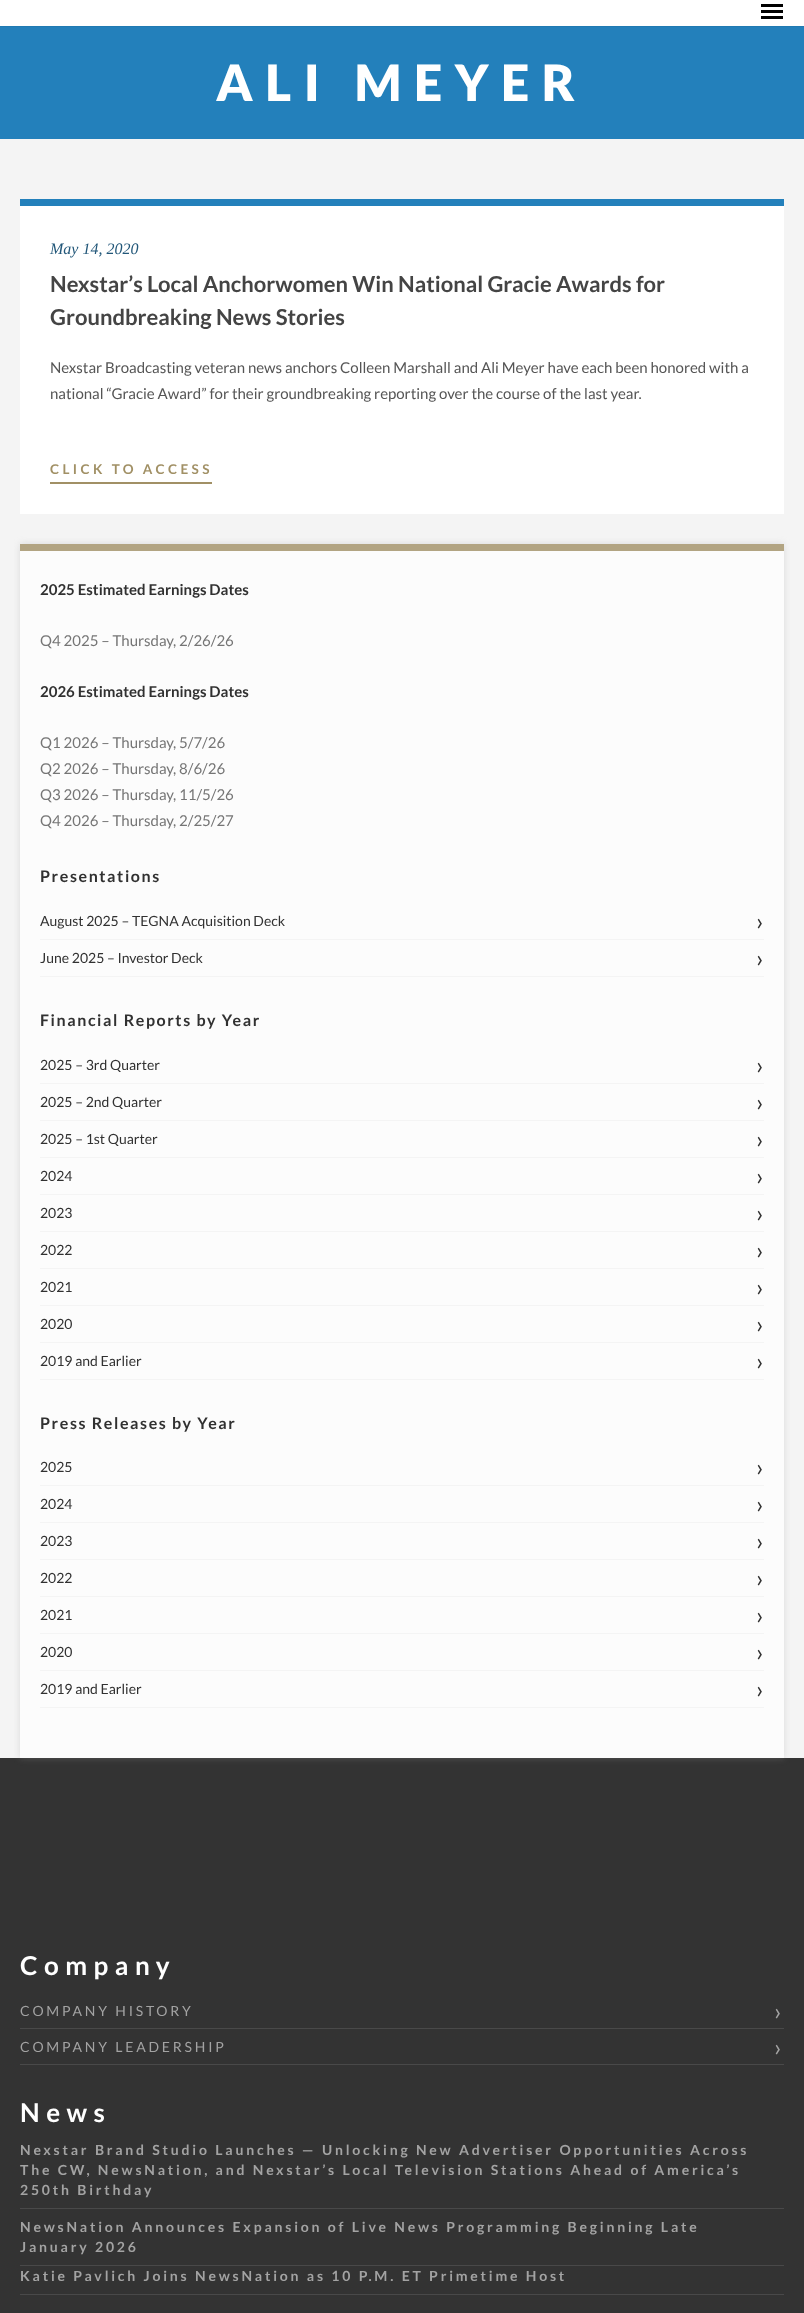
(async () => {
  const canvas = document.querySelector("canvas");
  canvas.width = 804;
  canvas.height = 2313;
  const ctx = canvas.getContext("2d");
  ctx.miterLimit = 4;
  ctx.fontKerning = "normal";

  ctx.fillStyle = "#ffffff";
  ctx.fillRect(0, 0, 804, 2313);
  for (const [x, y, w, h, color] of [
    [0, 26, 804, 1, "#217ab2"],
    [761, 4, 22, 3, "#000000"],
    [761, 10, 22, 3, "#000000"],
    [761, 16, 22, 3, "#000000"],
    [0, 139, 804, 1619, "#f4f4f4"],
    [0, 27, 804, 112, "#2380bb"],
    [20, 206, 764, 308, "#ffffff"],
    [20, 199, 764, 7, "#2380bb"],
    [50, 482, 162, 2, "#a19065"],
    [0, 1758, 804, 555, "#333333"],
  ]) {
    ctx.fillStyle = color;
    ctx.fillRect(x, y, w, h);
  }
  ctx.fillStyle = "rgba(166, 166, 166, 0.32)";
  ctx.filter = "blur(3.5px)";
  ctx.beginPath();
  ctx.rect(20, 544, 764, 1214);
  ctx.fill();
  ctx.filter = "none";
  for (const [x, y, w, h, color] of [
    [20, 551, 764, 1207, "#fcfcfc"],
    [20, 544, 764, 7, "#b2a482"],
    [40, 939, 724, 1, "#f4f4f4"],
    [40, 976, 724, 1, "#f4f4f4"],
    [40, 1083, 724, 1, "#f4f4f4"],
    [40, 1120, 724, 1, "#f4f4f4"],
    [40, 1157, 724, 1, "#f4f4f4"],
    [40, 1194, 724, 1, "#f4f4f4"],
    [40, 1231, 724, 1, "#f4f4f4"],
    [40, 1268, 724, 1, "#f4f4f4"],
    [40, 1305, 724, 1, "#f4f4f4"],
    [40, 1342, 724, 1, "#f4f4f4"],
    [40, 1379, 724, 1, "#f4f4f4"],
    [40, 1485, 724, 1, "#f4f4f4"],
    [40, 1522, 724, 1, "#f4f4f4"],
    [40, 1559, 724, 1, "#f4f4f4"],
    [40, 1596, 724, 1, "#f4f4f4"],
    [40, 1633, 724, 1, "#f4f4f4"],
    [40, 1670, 724, 1, "#f4f4f4"],
    [40, 1707, 724, 1, "#f4f4f4"],
    [20, 2028, 764, 1, "#494949"],
    [20, 2064, 764, 1, "#494949"],
    [20, 2208, 764, 1, "#494949"],
    [20, 2265, 764, 1, "#494949"],
    [20, 2294, 764, 1, "#494949"],
  ]) {
    ctx.fillStyle = color;
    ctx.fillRect(x, y, w, h);
  }
  ctx.letterSpacing = "12.5px";
  ctx.font = "900 50px Lato";
  ctx.fillStyle = "#ffffff";
  ctx.fillText("ALI MEYER", 216, 101);
  ctx.letterSpacing = "0px";
  ctx.font = "italic 16px Liberation Serif";
  ctx.fillStyle = "#225779";
  ctx.fillText("May 14, 2020", 50, 254);
  ctx.font = "bold 22px Lato";
  ctx.fillStyle = "#444444";
  ctx.fillText("Nexstar’s Local Anchorwomen Win National Gracie Awards for", 50, 292);
  ctx.fillText("Groundbreaking News Stories", 50, 325);
  ctx.font = "15px Lato";
  ctx.fillStyle = "#555555";
  ctx.fillText("Nexstar Broadcasting veteran news anchors Colleen Marshall and Ali Meyer have each been honored with a", 50, 373);
  ctx.fillText("national “Gracie Award” for their groundbreaking reporting over the course of the last year.", 50, 399);
  ctx.letterSpacing = "3.4px";
  ctx.font = "bold 13.5px Lato";
  ctx.fillStyle = "#a19065";
  ctx.fillText("CLICK TO ACCESS", 50, 474);
  ctx.letterSpacing = "0px";
  ctx.font = "bold 15px Lato";
  ctx.fillStyle = "#313131";
  ctx.fillText("2025 Estimated Earnings Dates", 40, 595);
  ctx.font = "15px Lato";
  ctx.fillStyle = "#757575";
  ctx.fillText("Q4 2025 – Thursday, 2/26/26", 40, 646);
  ctx.font = "bold 15px Lato";
  ctx.fillStyle = "#313131";
  ctx.fillText("2026 Estimated Earnings Dates", 40, 697);
  ctx.font = "15px Lato";
  ctx.fillStyle = "#757575";
  for (const [text, x, y] of [
    ["Q1 2026 – Thursday, 5/7/26", 40, 748],
    ["Q2 2026 – Thursday, 8/6/26", 40, 774],
    ["Q3 2026 – Thursday, 11/5/26", 40, 800],
    ["Q4 2026 – Thursday, 2/25/27", 40, 826],
  ]) {
    ctx.fillText(text, x, y);
  }
  ctx.letterSpacing = "1.6px";
  ctx.font = "bold 16px Lato";
  ctx.fillStyle = "#313131";
  ctx.fillText("Presentations", 40, 882);
  ctx.letterSpacing = "0px";
  ctx.font = "14px Lato";
  ctx.fillText("August 2025 – TEGNA Acquisition Deck", 40, 926);
  ctx.font = "24px Lato";
  ctx.fillText("›", 756, 930);
  ctx.font = "14px Lato";
  ctx.fillText("June 2025 – Investor Deck", 40, 963);
  ctx.font = "24px Lato";
  ctx.fillText("›", 756, 967);
  ctx.letterSpacing = "1.6px";
  ctx.font = "bold 16px Lato";
  ctx.fillText("Financial Reports by Year", 40, 1026);
  ctx.letterSpacing = "0px";
  ctx.font = "14px Lato";
  ctx.fillText("2025 – 3rd Quarter", 40, 1070);
  ctx.font = "24px Lato";
  ctx.fillText("›", 756, 1074);
  ctx.font = "14px Lato";
  ctx.fillText("2025 – 2nd Quarter", 40, 1107);
  ctx.font = "24px Lato";
  ctx.fillText("›", 756, 1111);
  ctx.font = "14px Lato";
  ctx.fillText("2025 – 1st Quarter", 40, 1144);
  ctx.font = "24px Lato";
  ctx.fillText("›", 756, 1148);
  ctx.font = "14px Lato";
  ctx.fillText("2024", 40, 1181);
  ctx.font = "24px Lato";
  ctx.fillText("›", 756, 1185);
  ctx.font = "14px Lato";
  ctx.fillText("2023", 40, 1218);
  ctx.font = "24px Lato";
  ctx.fillText("›", 756, 1222);
  ctx.font = "14px Lato";
  ctx.fillText("2022", 40, 1255);
  ctx.font = "24px Lato";
  ctx.fillText("›", 756, 1259);
  ctx.font = "14px Lato";
  ctx.fillText("2021", 40, 1292);
  ctx.font = "24px Lato";
  ctx.fillText("›", 756, 1296);
  ctx.font = "14px Lato";
  ctx.fillText("2020", 40, 1329);
  ctx.font = "24px Lato";
  ctx.fillText("›", 756, 1333);
  ctx.font = "14px Lato";
  ctx.fillText("2019 and Earlier", 40, 1366);
  ctx.font = "24px Lato";
  ctx.fillText("›", 756, 1370);
  ctx.letterSpacing = "1.6px";
  ctx.font = "bold 16px Lato";
  ctx.fillText("Press Releases by Year", 40, 1429);
  ctx.letterSpacing = "0px";
  ctx.font = "14px Lato";
  ctx.fillText("2025", 40, 1472);
  ctx.font = "24px Lato";
  ctx.fillText("›", 756, 1476);
  ctx.font = "14px Lato";
  ctx.fillText("2024", 40, 1509);
  ctx.font = "24px Lato";
  ctx.fillText("›", 756, 1513);
  ctx.font = "14px Lato";
  ctx.fillText("2023", 40, 1546);
  ctx.font = "24px Lato";
  ctx.fillText("›", 756, 1550);
  ctx.font = "14px Lato";
  ctx.fillText("2022", 40, 1583);
  ctx.font = "24px Lato";
  ctx.fillText("›", 756, 1587);
  ctx.font = "14px Lato";
  ctx.fillText("2021", 40, 1620);
  ctx.font = "24px Lato";
  ctx.fillText("›", 756, 1624);
  ctx.font = "14px Lato";
  ctx.fillText("2020", 40, 1657);
  ctx.font = "24px Lato";
  ctx.fillText("›", 756, 1661);
  ctx.font = "14px Lato";
  ctx.fillText("2019 and Earlier", 40, 1694);
  ctx.font = "24px Lato";
  ctx.fillText("›", 756, 1698);
  ctx.letterSpacing = "6.5px";
  ctx.font = "bold 26px Lato";
  ctx.fillStyle = "#ffffff";
  ctx.fillText("Company", 20, 1975);
  ctx.letterSpacing = "2.8px";
  ctx.font = "14px Lato";
  ctx.fillStyle = "#a3a3a3";
  ctx.fillText("COMPANY HISTORY", 20, 2016);
  ctx.font = "24px Lato";
  ctx.fillText("›", 774, 2020);
  ctx.font = "14px Lato";
  ctx.fillText("COMPANY LEADERSHIP", 20, 2052);
  ctx.font = "24px Lato";
  ctx.fillText("›", 774, 2056);
  ctx.letterSpacing = "6.5px";
  ctx.font = "bold 26px Lato";
  ctx.fillStyle = "#ffffff";
  ctx.fillText("News", 20, 2122);
  ctx.letterSpacing = "2.8px";
  ctx.font = "bold 14px Lato";
  ctx.fillStyle = "#a3a3a3";
  for (const [text, x, y] of [
    ["Nexstar Brand Studio Launches — Unlocking New Advertiser Opportunities Across", 20, 2155],
    ["The CW, NewsNation, and Nexstar’s Local Television Stations Ahead of America’s", 20, 2175],
    ["250th Birthday", 20, 2195],
    ["NewsNation Announces Expansion of Live News Programming Beginning Late", 20, 2232],
    ["January 2026", 20, 2252],
    ["Katie Pavlich Joins NewsNation as 10 P.M. ET Primetime Host", 20, 2281],
  ]) {
    ctx.fillText(text, x, y);
  }
})();
